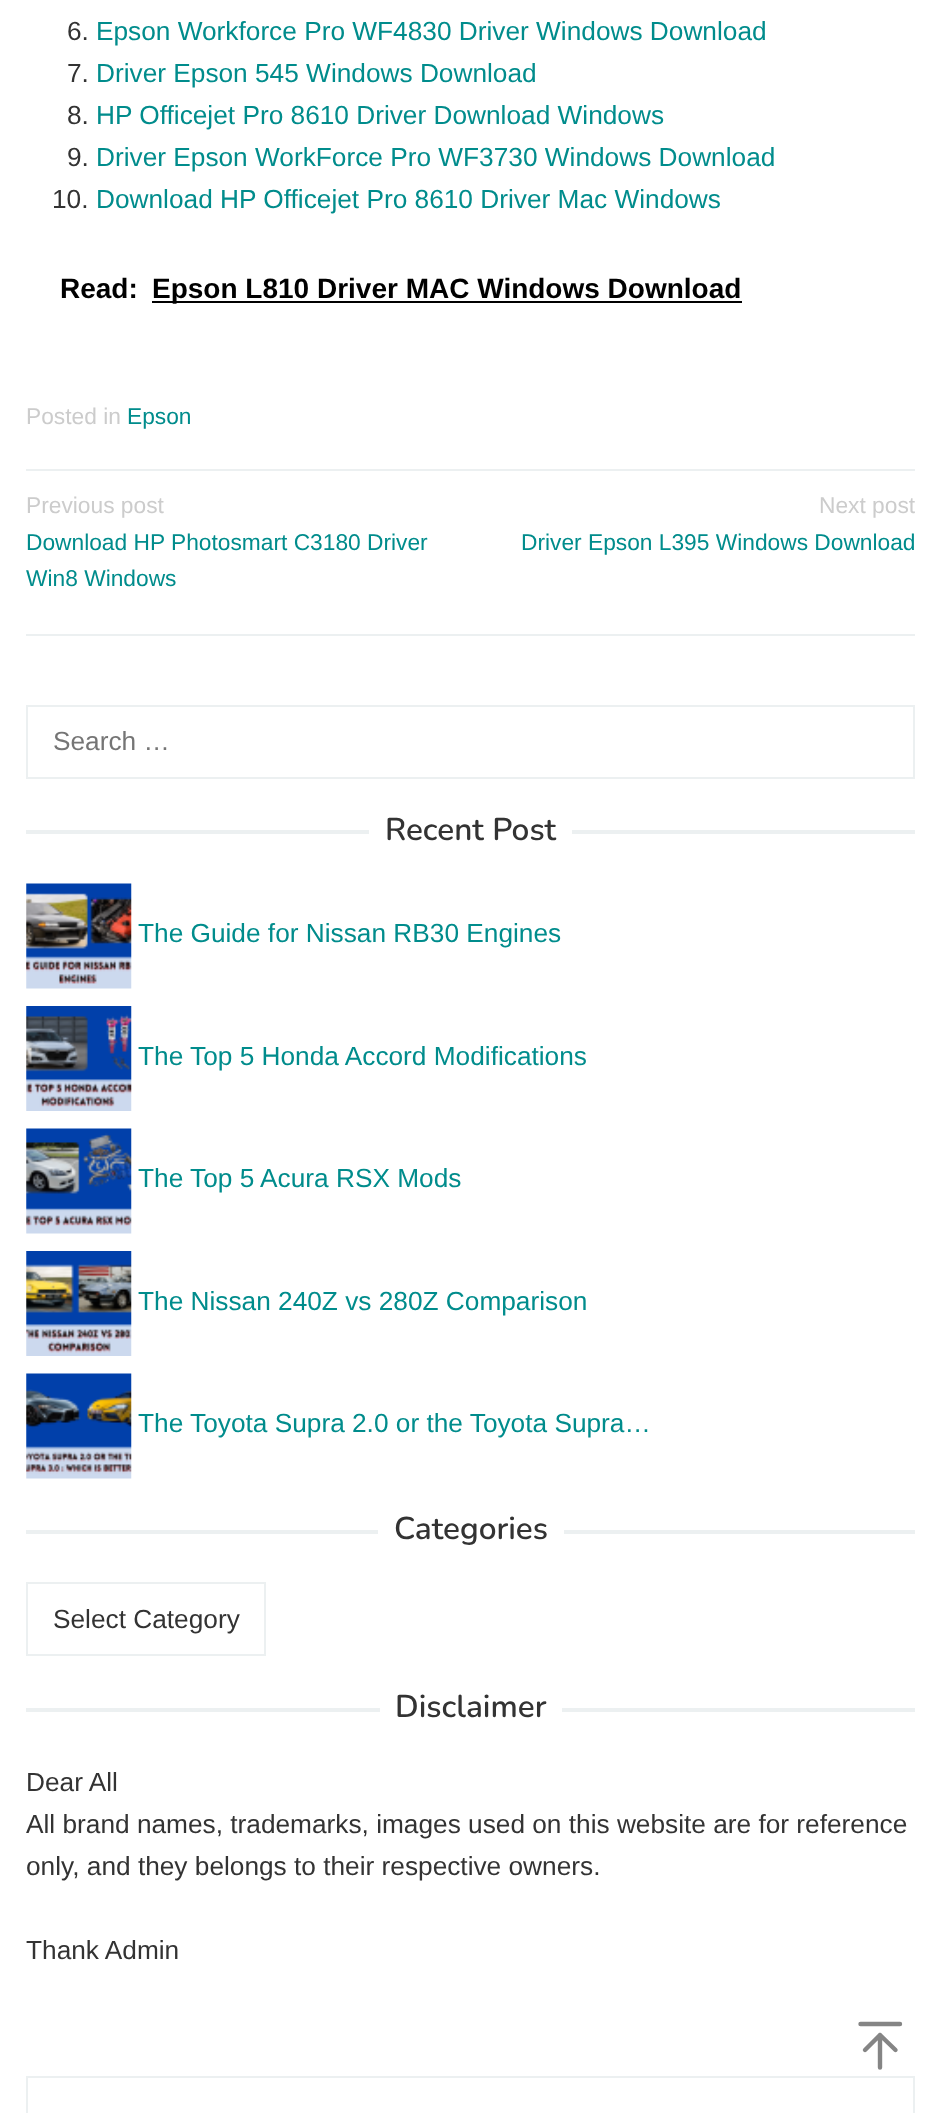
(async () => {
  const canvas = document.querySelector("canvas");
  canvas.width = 940;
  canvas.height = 2113;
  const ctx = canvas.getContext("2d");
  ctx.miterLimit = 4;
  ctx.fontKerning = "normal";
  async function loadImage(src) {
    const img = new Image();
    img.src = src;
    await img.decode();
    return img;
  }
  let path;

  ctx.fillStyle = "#ffffff";
  ctx.fillRect(0, 0, 940, 2113);
  for (const [x, y, w, h, color] of [
    [26, 634, 889, 2, "#ecf0f1"],
    [152, 301, 590, 2, "#000000"],
    [26, 469, 889, 2, "#ecf0f1"],
  ]) {
    ctx.fillStyle = color;
    ctx.fillRect(x, y, w, h);
  }
  ctx.strokeStyle = "#ecf0f1";
  ctx.lineWidth = 2;
  ctx.strokeRect(27, 706, 887, 72);
  ctx.fillRect(26, 830, 343, 4);
  ctx.fillRect(572, 830, 343, 4);
  ctx.drawImage(await loadImage("img/1.png"), 26, 883, 106, 106);
  ctx.drawImage(await loadImage("img/2.png"), 26, 1006, 106, 105);
  ctx.drawImage(await loadImage("img/3.png"), 26, 1128, 106, 106);
  ctx.drawImage(await loadImage("img/4.png"), 26, 1251, 106, 105);
  ctx.drawImage(await loadImage("img/5.png"), 26, 1373, 106, 106);
  ctx.fillRect(26, 1530, 352, 4);
  ctx.fillRect(564, 1530, 351, 4);
  ctx.strokeRect(27, 1583, 238, 72);
  ctx.fillRect(26, 1708, 354, 4);
  ctx.fillRect(562, 1708, 353, 4);
  ctx.strokeRect(27, 2077, 887, 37);
  path = new Path2D("M880 2067.5V2035M865 2050L880 2035L895.5 2050M860.5 2024H900");
  ctx.strokeStyle = "#858585";
  ctx.lineWidth = 4.4;
  ctx.lineCap = "round";
  ctx.lineJoin = "round";
  ctx.stroke(path);
  ctx.font = "26.25px Liberation Sans";
  ctx.fillStyle = "#333333";
  ctx.fillText("6.", 67, 40);
  ctx.fillStyle = "#008c8c";
  ctx.fillText("Epson Workforce Pro WF4830 Driver Windows Download", 96, 40);
  ctx.fillStyle = "#333333";
  ctx.fillText("7.", 67, 82);
  ctx.fillStyle = "#008c8c";
  ctx.fillText("Driver Epson 545 Windows Download", 96, 82);
  ctx.fillStyle = "#333333";
  ctx.fillText("8.", 67, 124);
  ctx.fillStyle = "#008c8c";
  ctx.fillText("HP Officejet Pro 8610 Driver Download Windows", 96, 124);
  ctx.fillStyle = "#333333";
  ctx.fillText("9.", 67, 166);
  ctx.fillStyle = "#008c8c";
  ctx.fillText("Driver Epson WorkForce Pro WF3730 Windows Download", 96, 166);
  ctx.fillStyle = "#333333";
  ctx.fillText("10.", 52, 208);
  ctx.fillStyle = "#008c8c";
  ctx.fillText("Download HP Officejet Pro 8610 Driver Mac Windows", 96, 208);
  ctx.font = "bold 28px Liberation Sans";
  ctx.fillStyle = "#000000";
  ctx.fillText("Read:", 60, 298);
  ctx.fillText("Epson L810 Driver MAC Windows Download", 152, 298);
  ctx.font = "22.75px Liberation Sans";
  ctx.fillStyle = "#cccccc";
  ctx.fillText("Posted in", 26, 424);
  ctx.fillStyle = "#008c8c";
  ctx.fillText("Epson", 127, 424);
  ctx.fillStyle = "#cccccc";
  ctx.fillText("Previous post", 26, 513);
  ctx.fillStyle = "#008c8c";
  ctx.fillText("Download HP Photosmart C3180 Driver", 26, 550);
  ctx.fillText("Win8 Windows", 26, 586);
  ctx.fillStyle = "#cccccc";
  ctx.fillText("Next post", 819, 513);
  ctx.fillStyle = "#008c8c";
  ctx.fillText("Driver Epson L395 Windows Download", 521, 550);
  ctx.font = "26.25px Liberation Sans";
  ctx.fillStyle = "#757575";
  ctx.fillText("Search …", 53, 750);
  ctx.font = "600 31.5px Nunito";
  ctx.fillStyle = "#333333";
  ctx.fillText("Recent Post", 385, 840);
  ctx.font = "26.25px Liberation Sans";
  ctx.fillStyle = "#008c8c";
  for (const [text, x, y] of [
    ["The Guide for Nissan RB30 Engines", 138, 942],
    ["The Top 5 Honda Accord Modifications", 138, 1065],
    ["The Top 5 Acura RSX Mods", 138, 1187],
    ["The Nissan 240Z vs 280Z Comparison", 138, 1310],
    ["The Toyota Supra 2.0 or the Toyota Supra…", 138, 1432],
  ]) {
    ctx.fillText(text, x, y);
  }
  ctx.font = "600 31.5px Nunito";
  ctx.fillStyle = "#333333";
  ctx.fillText("Categories", 394, 1539);
  ctx.font = "26.25px Liberation Sans";
  ctx.fillText("Select Category", 53, 1628);
  ctx.font = "600 31.5px Nunito";
  ctx.fillText("Disclaimer", 395, 1717);
  ctx.font = "26.25px Liberation Sans";
  for (const [text, x, y] of [
    ["Dear All", 26, 1791],
    ["All brand names, trademarks, images used on this website are for reference", 26, 1833],
    ["only, and they belongs to their respective owners.", 26, 1875],
    ["Thank Admin", 26, 1959],
  ]) {
    ctx.fillText(text, x, y);
  }
})();
